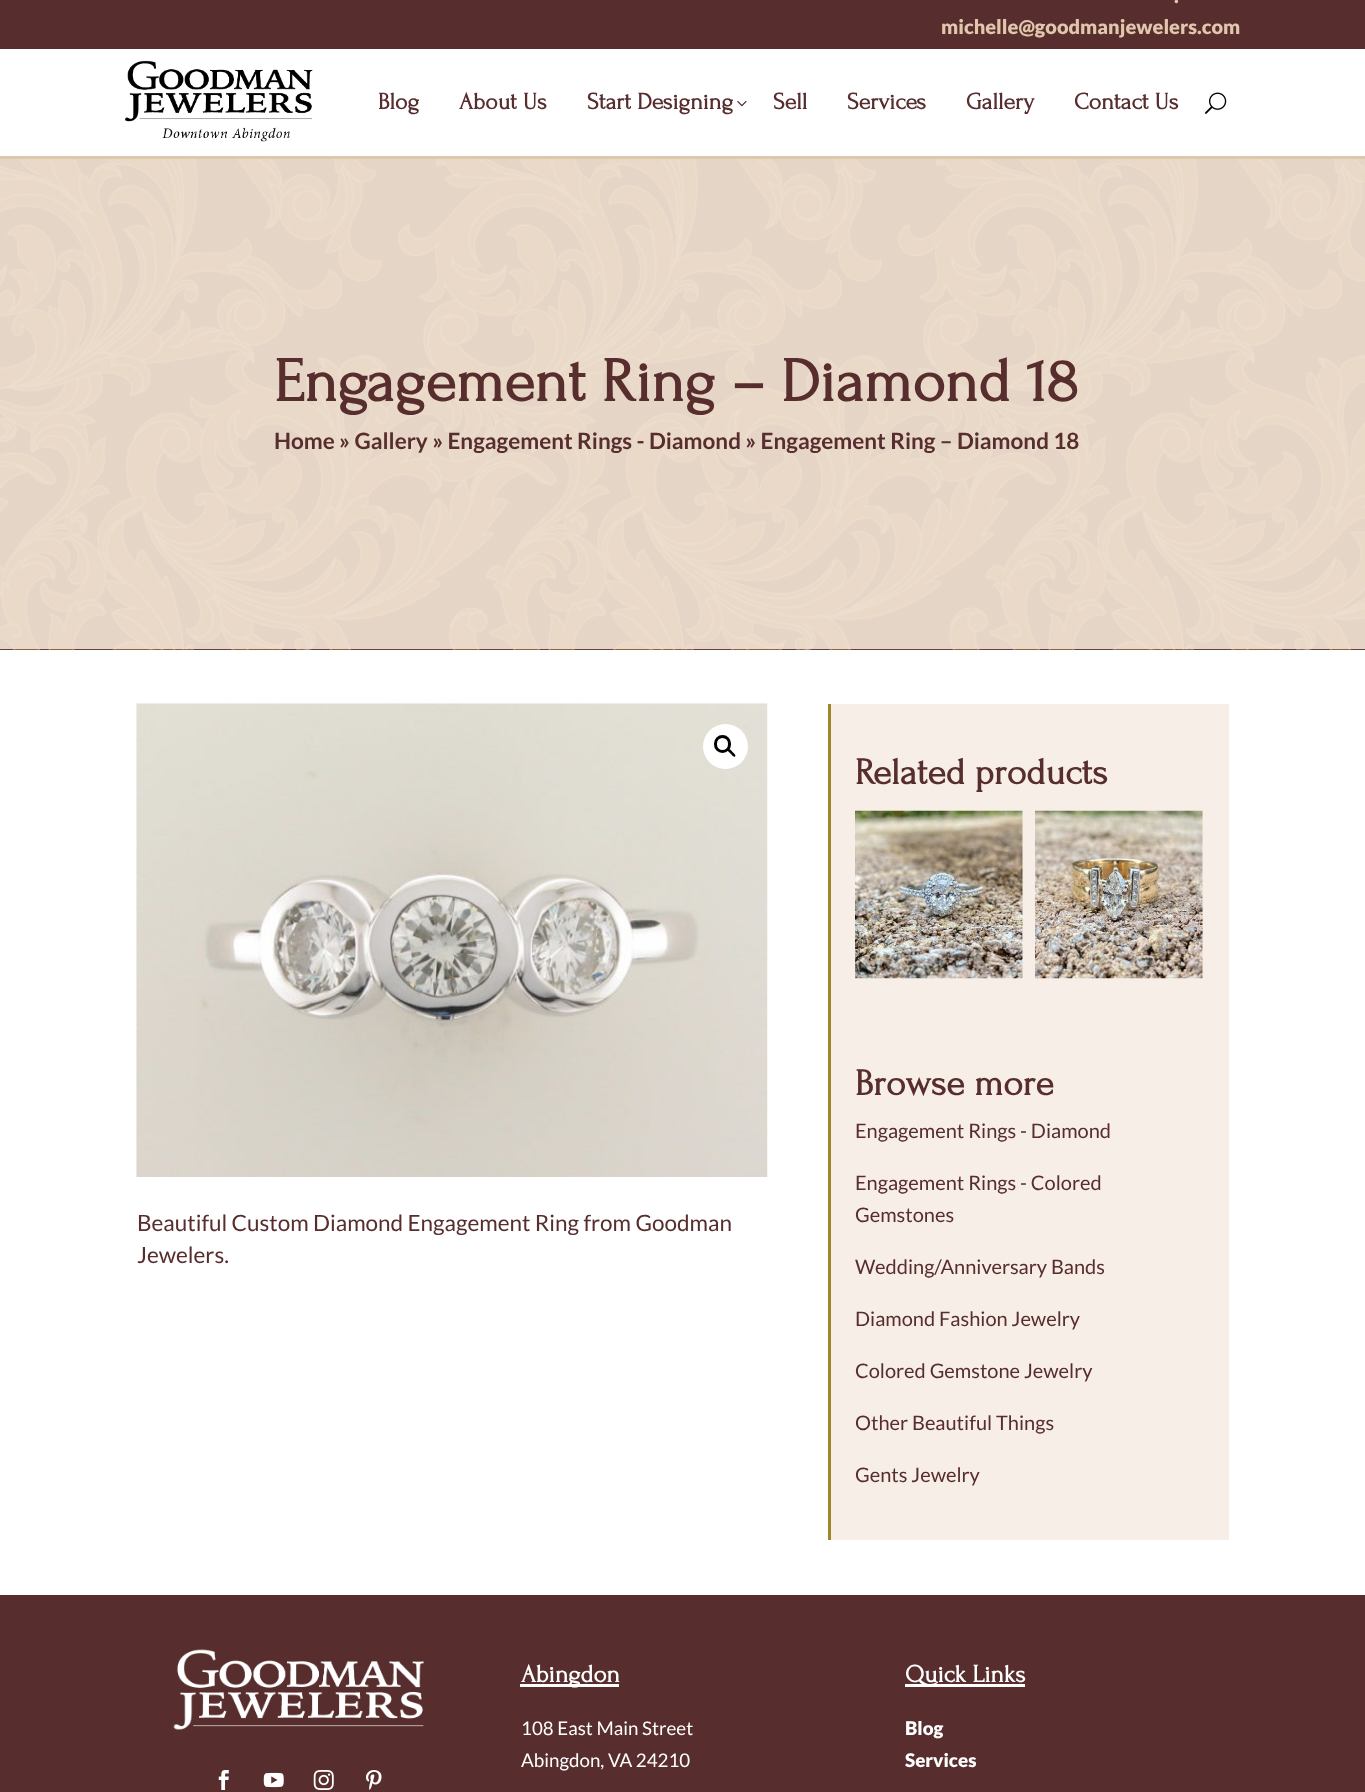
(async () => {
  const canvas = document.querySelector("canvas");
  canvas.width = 1365;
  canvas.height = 1792;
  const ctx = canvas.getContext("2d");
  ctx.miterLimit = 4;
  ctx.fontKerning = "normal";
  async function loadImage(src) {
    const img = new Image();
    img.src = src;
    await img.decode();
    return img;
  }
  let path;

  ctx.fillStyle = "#ffffff";
  ctx.fillRect(0, 0, 1365, 1792);
  ctx.fillStyle = "#572d2d";
  ctx.fillRect(0, 0, 1365, 49);
  ctx.fillStyle = "#e0c6ad";
  ctx.fillRect(0, 156, 1365, 3);
  ctx.drawImage(await loadImage("img/1.png"), 125, 60, 188, 82);
  ctx.drawImage(await loadImage("img/2.png"), 737, 101, 10, 6);
  ctx.drawImage(await loadImage("img/3.png"), 1205, 92, 22, 22);
  ctx.fillStyle = "#572d2d";
  ctx.fillRect(0, 159, 1365, 491);
  ctx.drawImage(await loadImage("img/4.png"), 0, 159, 1365, 491);
  ctx.drawImage(await loadImage("img/5.png"), 136, 703, 632, 474);
  ctx.fillStyle = "#ffffff";
  ctx.beginPath();
  ctx.arc(725.5, 746.5, 22.5, 0, Math.PI * 2);
  ctx.fill();
  ctx.beginPath();
  ctx.roundRect(715.5, 736.5, 14, 15, 7);
  ctx.strokeStyle = "#000000";
  ctx.lineWidth = 3;
  ctx.stroke();
  ctx.fillStyle = "#000000";
  path = new Path2D("M728 749.5C729.5 748 731.5 751 732.5 752C733 752.5 736.5 755 735 756.5C733.5 757.5 731.5 754.5 730.5 753.5C730 753 726.5 750.5 728 749.5Z");
  ctx.fill(path);
  ctx.fillStyle = "#f6eee7";
  ctx.fillRect(831, 704, 398, 836);
  ctx.fillStyle = "#a08629";
  ctx.fillRect(828, 704, 3, 836);
  ctx.drawImage(await loadImage("img/6.png"), 855, 810, 168, 169);
  ctx.drawImage(await loadImage("img/7.png"), 1035, 810, 168, 169);
  ctx.fillStyle = "#572d2d";
  ctx.fillRect(0, 1595, 1365, 197);
  ctx.drawImage(await loadImage("img/8.png"), 173, 1649, 251, 81);
  ctx.drawImage(await loadImage("img/9.png"), 218, 1770, 11, 20);
  ctx.drawImage(await loadImage("img/10.png"), 263, 1772, 21, 16);
  ctx.drawImage(await loadImage("img/11.png"), 313, 1770, 21, 20);
  ctx.drawImage(await loadImage("img/12.png"), 366, 1770, 16, 20);
  ctx.fillStyle = "#ffffff";
  ctx.fillRect(520, 1684, 99, 3);
  ctx.fillRect(905, 1684, 120, 3);
  ctx.font = "900 20px Lato";
  ctx.fillStyle = "#e0c6ad";
  ctx.fillText(".", 1174, 3);
  ctx.fillText("michelle@goodmanjewelers.com", 941, 34);
  ctx.font = "bold 23.75px Forum";
  ctx.fillStyle = "#572d2d";
  for (const [text, x, y] of [
    ["Blog", 378, 109],
    ["About Us", 459, 109],
    ["Start Designing", 587, 109],
    ["Sell", 773, 109],
    ["Services", 847, 109],
    ["Gallery", 966, 109],
    ["Contact Us", 1074, 109],
  ]) {
    ctx.fillText(text, x, y);
  }
  ctx.font = "bold 62.5px Forum";
  ctx.fillText("Engagement Ring – Diamond 18", 274, 401);
  ctx.font = "bold 22.5px Lato";
  ctx.fillText("Home » Gallery » Engagement Rings - Diamond » Engagement Ring – Diamond 18", 274, 449);
  ctx.font = "22.5px Lato";
  ctx.fillText("Beautiful Custom Diamond Engagement Ring from Goodman", 137, 1231);
  ctx.fillText("Jewelers.", 137, 1263);
  ctx.font = "bold 37.5px Forum";
  ctx.fillText("Related products", 855, 784);
  ctx.fillText("Browse more", 855, 1095);
  ctx.font = "20px Lato";
  for (const [text, x, y] of [
    ["Engagement Rings - Diamond", 855, 1138],
    ["Engagement Rings - Colored", 855, 1190],
    ["Gemstones", 855, 1222],
    ["Wedding/Anniversary Bands", 855, 1274],
    ["Diamond Fashion Jewelry", 855, 1326],
    ["Colored Gemstone Jewelry", 855, 1378],
    ["Other Beautiful Things", 855, 1430],
    ["Gents Jewelry", 855, 1482],
  ]) {
    ctx.fillText(text, x, y);
  }
  ctx.font = "bold 25px Forum";
  ctx.fillStyle = "#ffffff";
  ctx.fillText("Abingdon", 521, 1682);
  ctx.font = "18.75px Lato";
  ctx.fillText("108 East Main Street", 521, 1735);
  ctx.fillText("Abingdon, VA 24210", 521, 1767);
  ctx.font = "bold 25px Forum";
  ctx.fillText("Quick Links", 905, 1682);
  ctx.font = "900 18.75px Lato";
  ctx.fillText("Blog", 905, 1735);
  ctx.fillText("Services", 905, 1767);
})();
